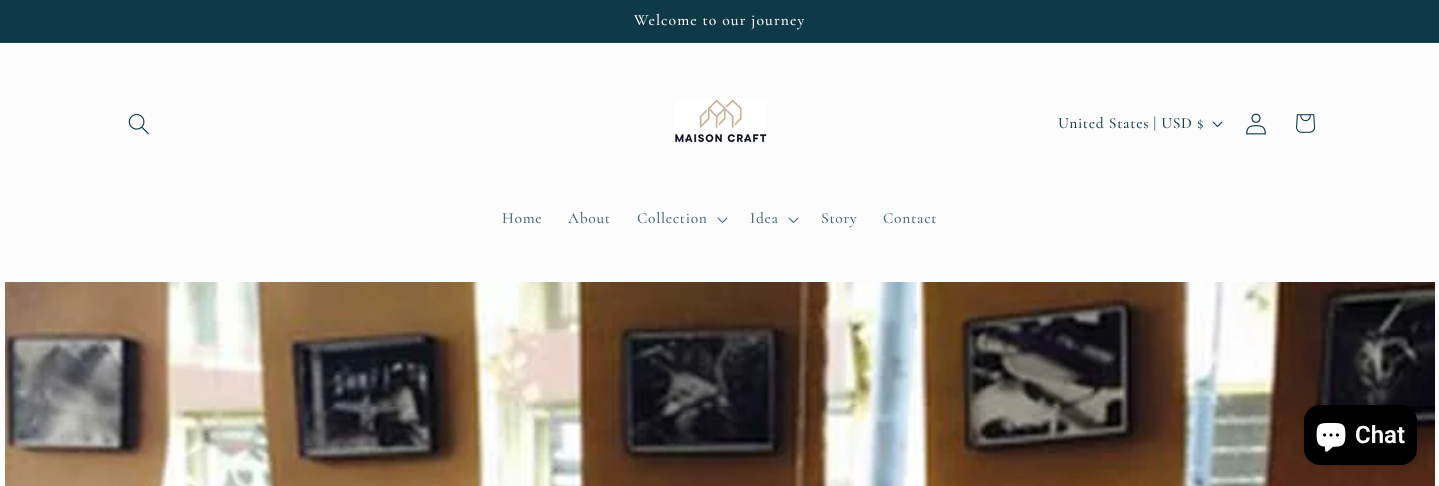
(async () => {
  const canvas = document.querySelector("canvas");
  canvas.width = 1439;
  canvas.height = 486;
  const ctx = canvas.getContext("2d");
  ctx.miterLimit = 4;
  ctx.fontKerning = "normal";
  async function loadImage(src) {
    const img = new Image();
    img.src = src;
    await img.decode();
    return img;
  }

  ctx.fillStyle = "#fcfcfc";
  ctx.fillRect(0, 0, 1439, 486);
  ctx.fillStyle = "#103948";
  ctx.fillRect(0, 0, 1439, 42);
  ctx.fillStyle = "#234956";
  ctx.fillRect(0, 42, 1439, 1);
  ctx.drawImage(await loadImage("img/1.png"), 128, 113, 21, 22);
  ctx.drawImage(await loadImage("img/2.png"), 675, 99, 92, 44);
  ctx.drawImage(await loadImage("img/3.png"), 1212, 121, 11, 6);
  ctx.drawImage(await loadImage("img/4.png"), 1246, 113, 20, 22);
  ctx.drawImage(await loadImage("img/5.png"), 1296, 114, 20, 19);
  ctx.drawImage(await loadImage("img/6.png"), 717, 217, 11, 6);
  ctx.drawImage(await loadImage("img/6.png"), 788, 217, 11, 6);
  ctx.drawImage(await loadImage("img/7.png"), 5, 282, 1430, 204);
  ctx.fillStyle = "rgba(0, 0, 0, 0.15)";
  ctx.filter = "blur(2.5px)";
  ctx.beginPath();
  ctx.roundRect(1304, 405, 113, 60, 16);
  ctx.fill();
  ctx.filter = "none";
  ctx.fillStyle = "#000000";
  ctx.beginPath();
  ctx.roundRect(1304, 405, 113, 60, 16);
  ctx.fill();
  ctx.drawImage(await loadImage("img/8.png"), 1316, 423, 30, 29);
  ctx.letterSpacing = "1.1px";
  ctx.font = "500 15.6px Cormorant";
  ctx.fillStyle = "#fcfcfc";
  ctx.fillText("Welcome to our journey", 634, 25);
  ctx.letterSpacing = "0.7px";
  ctx.font = "500 15.5px Cormorant";
  ctx.fillStyle = "#103948";
  ctx.fillText("United States | USD $", 1058, 128);
  ctx.fillStyle = "#4b6a75";
  for (const [text, x, y] of [
    ["Home", 502, 223],
    ["About", 568, 223],
    ["Collection", 637, 223],
    ["Idea", 750, 223],
    ["Story", 821, 223],
    ["Contact", 883, 223],
  ]) {
    ctx.fillText(text, x, y);
  }
  ctx.letterSpacing = "0px";
  ctx.font = "600 24px Roboto";
  ctx.fillStyle = "#fcfcfc";
  ctx.fillText("Chat", 1355, 443);
})();
